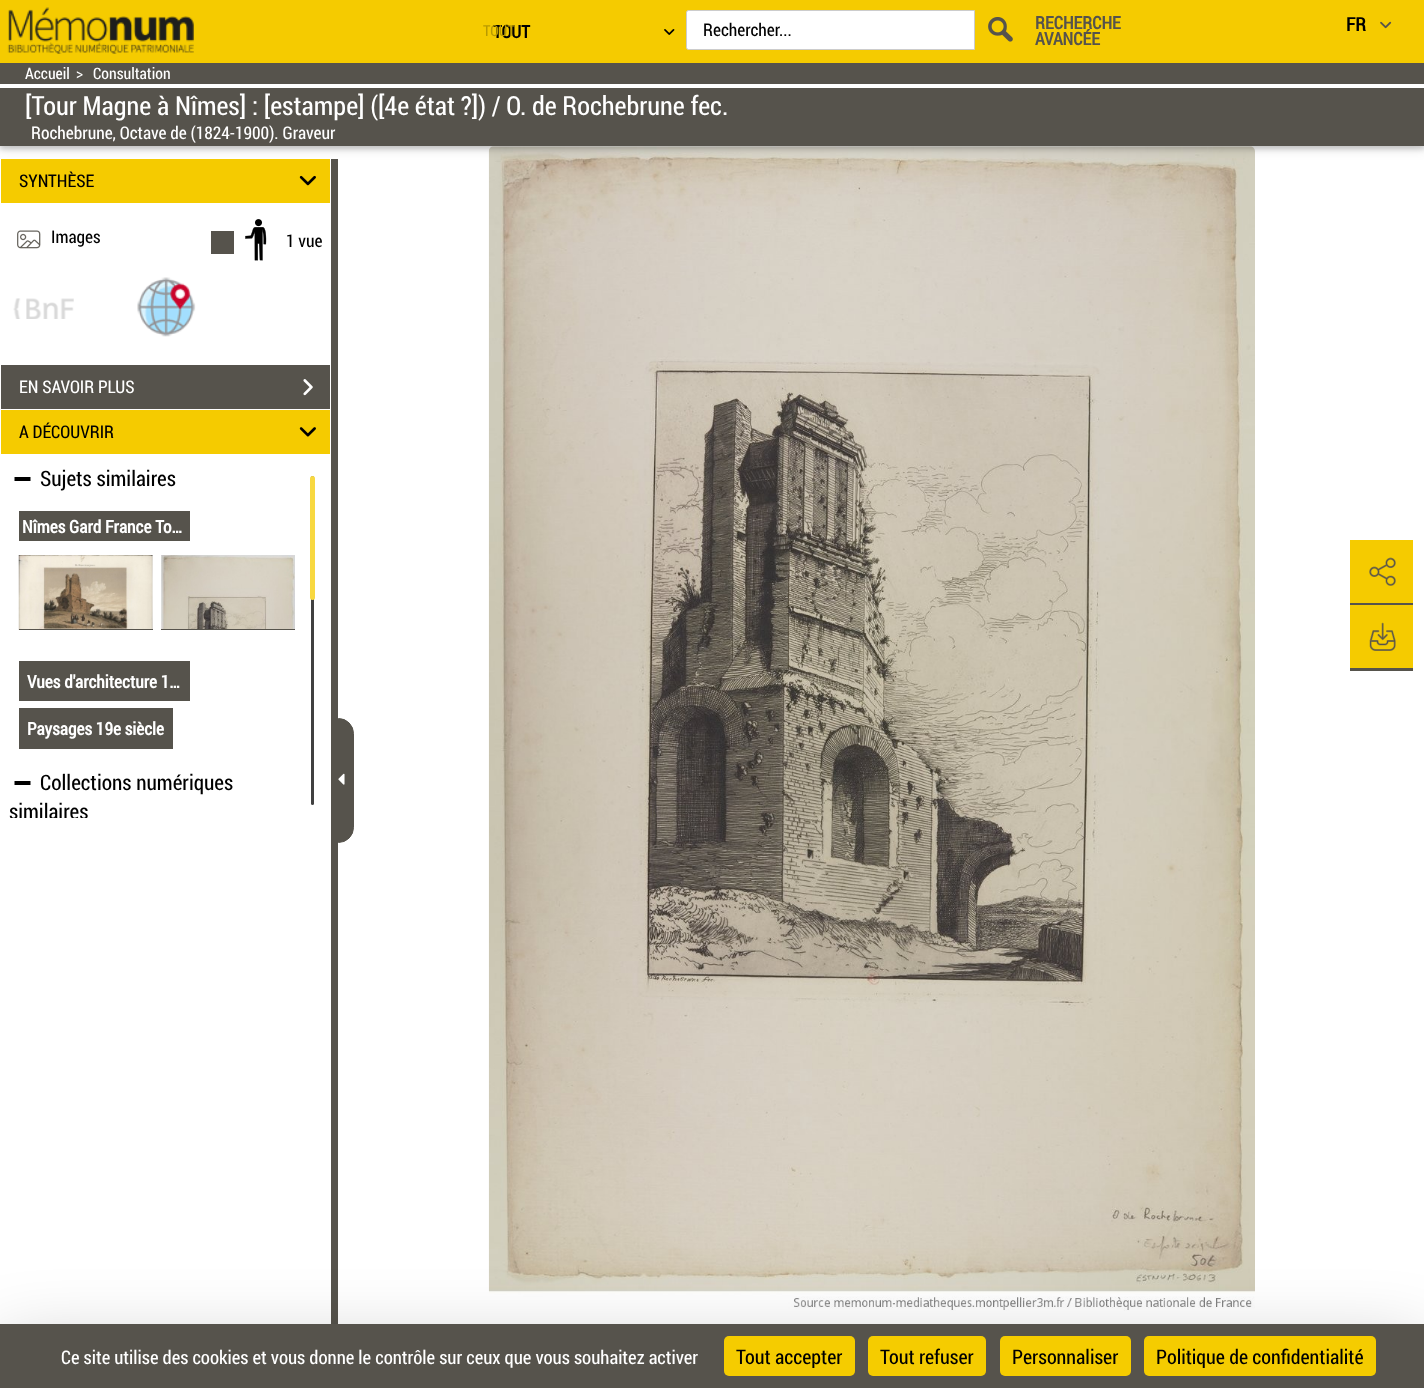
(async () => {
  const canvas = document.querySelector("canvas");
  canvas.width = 1424;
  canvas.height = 1388;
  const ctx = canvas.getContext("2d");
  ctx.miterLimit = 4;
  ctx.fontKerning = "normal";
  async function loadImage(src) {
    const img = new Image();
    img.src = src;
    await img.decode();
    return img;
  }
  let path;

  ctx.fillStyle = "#ffffff";
  ctx.fillRect(0, 0, 1424, 1388);
  ctx.drawImage(await loadImage("img/15.png"), 488, 146, 767, 1165);
  ctx.fillStyle = "rgba(0, 0, 0, 0.12)";
  ctx.filter = "blur(6px)";
  ctx.beginPath();
  ctx.rect(0, 65, 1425, 84);
  ctx.fill();
  ctx.filter = "none";
  ctx.fillStyle = "rgba(0, 0, 0, 0.16)";
  ctx.filter = "blur(2.5px)";
  ctx.beginPath();
  ctx.rect(0, 65, 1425, 84);
  ctx.fill();
  ctx.filter = "none";
  ctx.fillStyle = "#f5cb00";
  ctx.fillRect(0, 0, 1424, 63);
  ctx.drawImage(await loadImage("img/1.png"), 7, 7, 187, 47);
  ctx.drawImage(await loadImage("img/2.png"), 664, 29, 11, 6);
  ctx.fillStyle = "#ffffff";
  ctx.beginPath();
  ctx.roundRect(686.5, 10.5, 288, 39, [2, 0, 0, 2]);
  ctx.fill();
  ctx.strokeStyle = "#cccccc";
  ctx.stroke();
  ctx.drawImage(await loadImage("img/3.png"), 988, 17, 25, 25);
  ctx.drawImage(await loadImage("img/4.png"), 1380, 21, 12, 8);
  for (const [x, y, w, h, color] of [
    [0, 63, 1424, 83, "#56534c"],
    [0, 84, 1424, 4, "#ffffff"],
    [331, 159, 7, 1165, "#56534c"],
    [1, 159, 329, 44, "#f5cb00"],
  ]) {
    ctx.fillStyle = color;
    ctx.fillRect(x, y, w, h);
  }
  ctx.drawImage(await loadImage("img/5.png"), 299, 175, 17, 11);
  ctx.drawImage(await loadImage("img/6.png"), 17, 230, 24, 19);
  ctx.fillStyle = "#56534c";
  ctx.fillRect(211, 231, 23, 23);
  ctx.drawImage(await loadImage("img/7.png"), 245, 219, 22, 42);
  ctx.drawImage(await loadImage("img/8.png"), 13, 298, 61, 21);
  ctx.drawImage(await loadImage("img/9.png"), 137, 277, 59, 60);
  ctx.fillRect(1, 365, 329, 44);
  ctx.drawImage(await loadImage("img/10.png"), 303, 379, 10, 17);
  ctx.fillStyle = "#f5cb00";
  ctx.fillRect(1, 410, 329, 44);
  ctx.drawImage(await loadImage("img/11.png"), 299, 427, 17, 10);
  ctx.fillStyle = "#000000";
  path = new Path2D("M20.5 481H14.5V477H30.5V481Z");
  ctx.fill(path);
  ctx.fillStyle = "#56534c";
  ctx.fillRect(19, 511, 171, 30);
  ctx.drawImage(await loadImage("img/12.png"), 18, 555, 135, 75);
  ctx.fillRect(19, 629, 134, 1);
  ctx.drawImage(await loadImage("img/13.png"), 161, 555, 134, 74);
  for (const [x, y, w, h, color] of [
    [161, 629, 134, 1, "#56534c"],
    [19, 661, 171, 40, "#56534c"],
    [19, 708, 154, 41, "#56534c"],
  ]) {
    ctx.fillStyle = color;
    ctx.fillRect(x, y, w, h);
  }
  ctx.fillStyle = "#000000";
  path = new Path2D("M20.5 785H14.5V781H30.5V785Z");
  ctx.fill(path);
  ctx.fillStyle = "#404040";
  ctx.beginPath();
  ctx.roundRect(311, 476, 3, 329, 1.5);
  ctx.fill();
  ctx.fillStyle = "#f8d840";
  ctx.beginPath();
  ctx.roundRect(310, 476, 5, 124, 2.5);
  ctx.fill();
  ctx.fillStyle = "#56534c";
  ctx.beginPath();
  ctx.roundRect(338.5, 718.5, 15, 124, [0, 15.5, 15.5, 0]);
  ctx.fill();
  ctx.strokeStyle = "#56534c";
  ctx.stroke();
  ctx.drawImage(await loadImage("img/14.png"), 338, 773, 7, 12);
  ctx.fillStyle = "#f5cb00";
  ctx.fillRect(1350, 540, 63, 63);
  ctx.drawImage(await loadImage("img/16.png"), 1369, 557, 27, 29);
  ctx.fillStyle = "#56534c";
  ctx.fillRect(1350, 603, 63, 2);
  ctx.fillStyle = "#f5cb00";
  ctx.fillRect(1350, 605, 63, 63);
  ctx.drawImage(await loadImage("img/17.png"), 1369, 622, 27, 29);
  ctx.fillStyle = "#56534c";
  ctx.fillRect(1350, 668, 63, 3);
  ctx.fillStyle = "rgba(0, 0, 0, 0.25)";
  ctx.filter = "blur(37.5px)";
  ctx.beginPath();
  ctx.rect(0, 1349, 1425, 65);
  ctx.fill();
  ctx.filter = "none";
  ctx.fillStyle = "#56534c";
  ctx.fillRect(0, 1324, 1424, 64);
  ctx.fillStyle = "#f5cc00";
  ctx.beginPath();
  ctx.roundRect(724, 1336, 131, 40, 5);
  ctx.fill();
  ctx.beginPath();
  ctx.roundRect(868, 1336, 118, 40, 5);
  ctx.fill();
  ctx.beginPath();
  ctx.roundRect(1000, 1336, 131, 40, 5);
  ctx.fill();
  ctx.beginPath();
  ctx.roundRect(1144, 1336, 232, 40, 5);
  ctx.fill();
  ctx.font = "bold 17.5px Roboto Condensed";
  ctx.fillStyle = "#000000";
  ctx.fillText("TOUT", 493, 38);
  ctx.font = "15px Roboto Condensed";
  ctx.fillStyle = "#b99a00";
  ctx.fillText("TOUT", 483, 36);
  ctx.font = "17.5px Roboto Condensed";
  ctx.fillStyle = "#000000";
  ctx.fillText("Rechercher...", 703, 36);
  ctx.font = "bold 17.5px Roboto Condensed";
  ctx.fillStyle = "#56534c";
  ctx.fillText("RECHERCHE", 1035, 29);
  ctx.fillText("AVANCÉE", 1035, 45);
  ctx.font = "bold 18.75px Roboto Condensed";
  ctx.fillStyle = "#000000";
  ctx.fillText("FR", 1346, 31);
  ctx.font = "15.75px Roboto Condensed";
  ctx.fillStyle = "#ffffff";
  for (const [text, x, y] of [
    ["Accueil", 25, 79],
    [">", 76, 79],
    ["Consultation", 93, 79],
  ]) {
    ctx.fillText(text, x, y);
  }
  ctx.font = "26.25px Roboto Condensed";
  ctx.fillText("[Tour Magne à Nîmes] : [estampe] ([4e état ?]) / O. de Rochebrune fec.", 25, 115);
  ctx.font = "17.5px Roboto Condensed";
  ctx.fillText("Rochebrune, Octave de (1824-1900). Graveur", 31, 139);
  ctx.fillStyle = "#000000";
  for (const [text, x, y] of [
    ["SYNTHÈSE", 19, 187],
    ["Images", 51, 243],
    ["1 vue", 286, 247],
  ]) {
    ctx.fillText(text, x, y);
  }
  ctx.fillStyle = "#ffffff";
  ctx.fillText("EN SAVOIR PLUS", 19, 393);
  ctx.fillStyle = "#000000";
  ctx.fillText("A DÉCOUVRIR", 19, 438);
  ctx.font = "21.25px Roboto Condensed";
  ctx.fillText("Sujets similaires", 40, 486);
  ctx.font = "bold 17.5px Roboto Condensed";
  ctx.fillStyle = "#ffffff";
  for (const [text, x, y] of [
    ["Nîmes Gard France To…", 22, 533],
    ["Vues d'architecture 1…", 27, 688],
    ["Paysages 19e siècle", 27, 735],
  ]) {
    ctx.fillText(text, x, y);
  }
  ctx.font = "21.25px Roboto Condensed";
  ctx.fillStyle = "#000000";
  ctx.fillText("Collections numériques", 40, 790);
  ctx.save();
  ctx.beginPath();
  ctx.rect(9, 464, 295, 354);
  ctx.clip();
  ctx.fillText("similaires", 9, 819);
  ctx.restore();
  ctx.font = "18.75px Roboto Condensed";
  ctx.fillStyle = "#ffffff";
  ctx.fillText("Ce site utilise des cookies et vous donne le contrôle sur ceux que vous souhaitez activer", 61, 1364);
  ctx.font = "20px Roboto Condensed";
  ctx.fillStyle = "#000000";
  for (const [text, x, y] of [
    ["Tout accepter", 736, 1364],
    ["Tout refuser", 880, 1364],
    ["Personnaliser", 1012, 1364],
    ["Politique de confidentialité", 1156, 1364],
  ]) {
    ctx.fillText(text, x, y);
  }
})();
